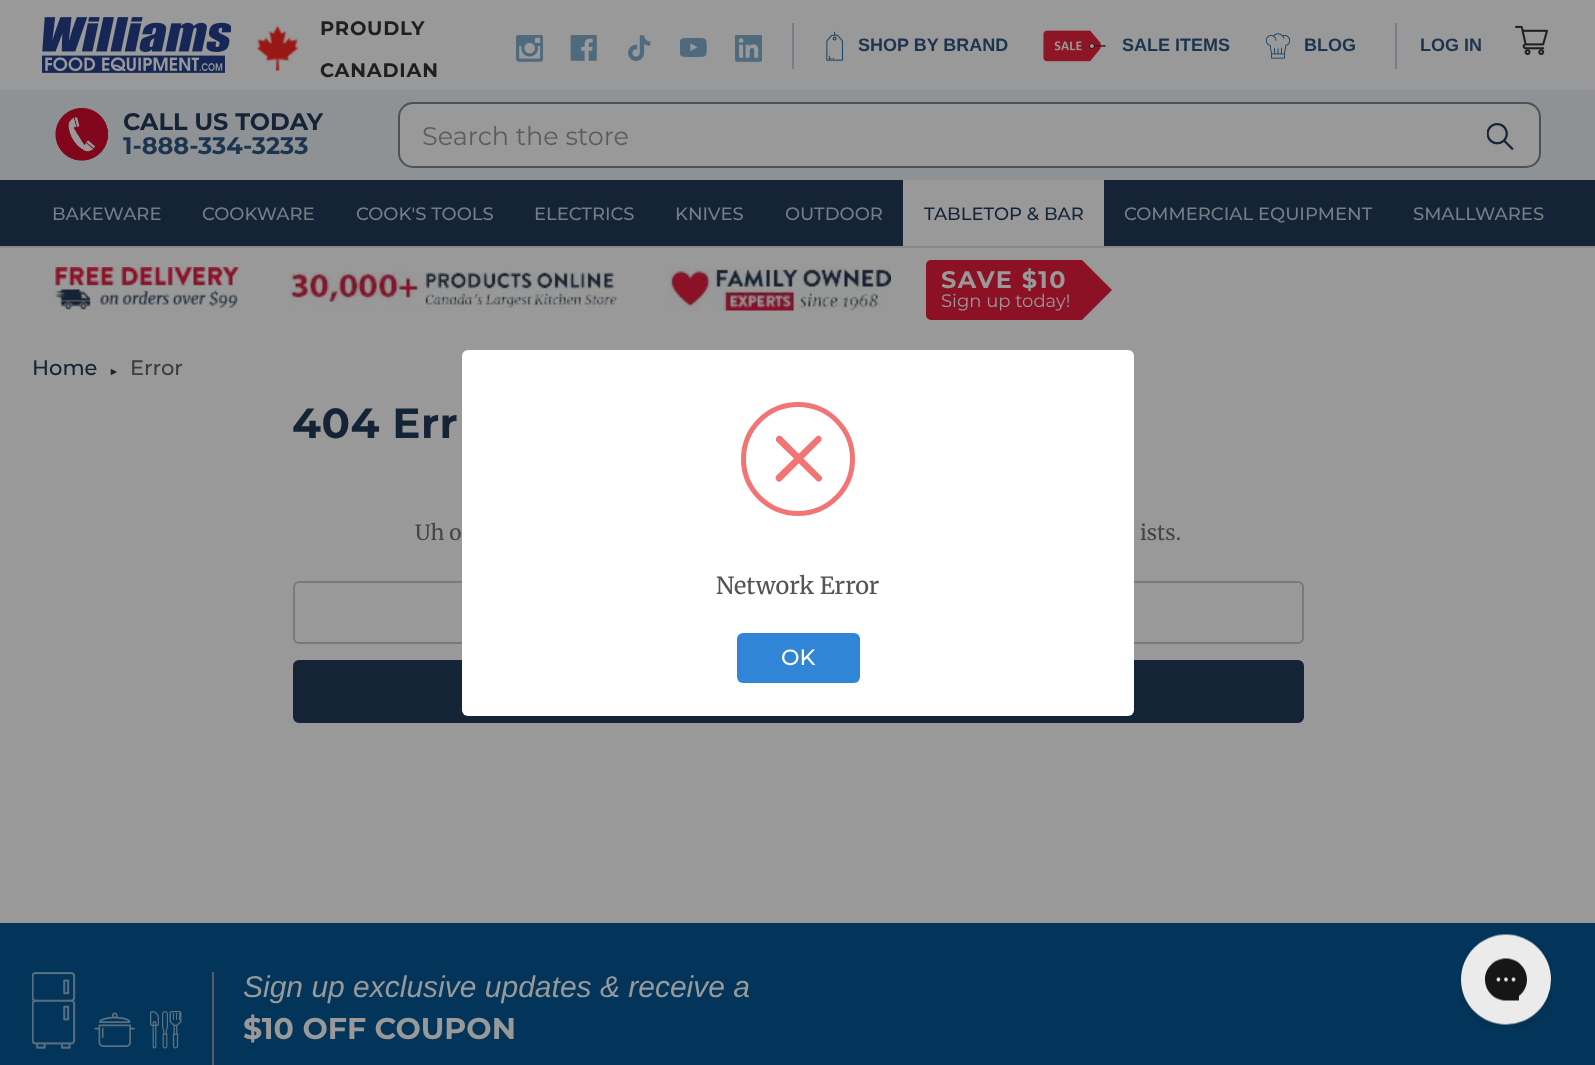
(async () => {
  const canvas = document.querySelector("canvas");
  canvas.width = 1595;
  canvas.height = 1065;
  const ctx = canvas.getContext("2d");
  ctx.miterLimit = 4;
  ctx.fontKerning = "normal";
  async function loadImage(src) {
    const img = new Image();
    img.src = src;
    await img.decode();
    return img;
  }
  let path;

  ctx.fillStyle = "#999999";
  ctx.fillRect(0, 0, 1595, 1065);
  ctx.fillStyle = "#898989";
  ctx.fillRect(0, 246, 1595, 2);
  ctx.drawImage(await loadImage("img/1.png"), 42, 17, 189, 56);
  ctx.drawImage(await loadImage("img/2.png"), 256, 25, 43, 46);
  ctx.drawImage(await loadImage("img/3.png"), 516, 35, 27, 27);
  ctx.drawImage(await loadImage("img/4.png"), 570, 35, 27, 26);
  ctx.drawImage(await loadImage("img/5.png"), 628, 35, 23, 26);
  ctx.drawImage(await loadImage("img/6.png"), 680, 37, 27, 21);
  ctx.drawImage(await loadImage("img/7.png"), 735, 35, 27, 27);
  ctx.fillStyle = "#737f89";
  ctx.fillRect(792, 23, 2, 46);
  ctx.drawImage(await loadImage("img/8.png"), 826, 31, 17, 30);
  ctx.drawImage(await loadImage("img/9.png"), 1043, 30, 63, 32);
  ctx.drawImage(await loadImage("img/10.png"), 1265, 33, 26, 26);
  ctx.fillRect(1395, 23, 2, 46);
  ctx.drawImage(await loadImage("img/11.png"), 1515, 25, 33, 30);
  ctx.fillStyle = "#8f9294";
  ctx.fillRect(0, 90, 1595, 90);
  ctx.drawImage(await loadImage("img/12.png"), 55, 108, 53, 53);
  ctx.fillStyle = "#999999";
  ctx.beginPath();
  ctx.roundRect(399, 103, 1141, 64, 14);
  ctx.fill();
  ctx.strokeStyle = "#505050";
  ctx.lineWidth = 2;
  ctx.stroke();
  ctx.drawImage(await loadImage("img/13.png"), 1487, 123, 27, 27);
  ctx.fillStyle = "#142335";
  ctx.fillRect(0, 180, 1595, 66);
  ctx.fillStyle = "#999999";
  ctx.fillRect(903, 180, 201, 66);
  ctx.drawImage(await loadImage("img/14.png"), 55, 267, 184, 43);
  ctx.drawImage(await loadImage("img/15.png"), 289, 271, 328, 37);
  ctx.drawImage(await loadImage("img/16.png"), 667, 267, 224, 44);
  ctx.fillStyle = "#8c1125";
  ctx.beginPath();
  ctx.roundRect(926, 260, 156, 60, [5, 0, 0, 5]);
  ctx.fill();
  path = new Path2D("M1082 320V260L1112 290Z");
  ctx.fill(path);
  ctx.beginPath();
  ctx.roundRect(294, 582, 1009, 61, 5);
  ctx.strokeStyle = "#7a7a7a";
  ctx.stroke();
  ctx.fillStyle = "#142335";
  ctx.beginPath();
  ctx.roundRect(294, 661, 1009, 61, 5);
  ctx.fill();
  ctx.strokeStyle = "#142335";
  ctx.stroke();
  ctx.fillStyle = "#ffffff";
  ctx.beginPath();
  ctx.roundRect(462, 350, 672, 366, 6);
  ctx.fill();
  ctx.beginPath();
  ctx.arc(798, 459, 54.5, 0, Math.PI * 2);
  ctx.strokeStyle = "#f27474";
  ctx.lineWidth = 5;
  ctx.stroke();
  ctx.fillStyle = "#f27474";
  path = new Path2D("M781 436L822 477C823 480 819 483 817 481L776 441V439C776 436 779 435 781 436Z");
  ctx.fill(path);
  path = new Path2D("M776 476L817 436C820 435 823 438 821 441L781 481L779 482C776 481 775 478 776 476Z");
  ctx.fill(path);
  ctx.fillStyle = "#3085d6";
  ctx.beginPath();
  ctx.roundRect(737, 633, 123, 50, 6);
  ctx.fill();
  ctx.fillStyle = "#023559";
  ctx.fillRect(0, 923, 1595, 142);
  ctx.fillStyle = "#525e66";
  ctx.fillRect(212, 972, 2, 93);
  ctx.drawImage(await loadImage("img/17.png"), 32, 972, 150, 77);
  ctx.drawImage(await loadImage("img/18.png"), 1460, 934, 92, 94);
  ctx.letterSpacing = "0.75px";
  ctx.font = "bold 19.5px Montserrat";
  ctx.fillStyle = "#1f1f1f";
  ctx.fillText("PROUDLY", 320, 35);
  ctx.fillText("CANADIAN", 320, 77);
  ctx.letterSpacing = "0px";
  ctx.font = "bold 18px Liberation Sans";
  ctx.fillStyle = "#1c344f";
  for (const [text, x, y] of [
    ["SHOP BY BRAND", 858, 51],
    ["SALE ITEMS", 1122, 51],
    ["BLOG", 1304, 51],
    ["LOG IN", 1420, 51],
  ]) {
    ctx.fillText(text, x, y);
  }
  ctx.font = "bold 24px Montserrat";
  ctx.fillStyle = "#142335";
  ctx.fillText("CALL US TODAY", 123, 130);
  ctx.fillStyle = "#1c344f";
  ctx.fillText("1-888-334-3233", 123, 154);
  ctx.font = "25.5px Montserrat";
  ctx.fillStyle = "#5c5c5c";
  ctx.fillText("Search the store", 422, 145);
  ctx.font = "500 18px Montserrat";
  ctx.fillStyle = "#757d86";
  for (const [text, x, y] of [
    ["BAKEWARE", 52, 220],
    ["COOKWARE", 202, 220],
    ["COOK'S TOOLS", 356, 220],
    ["ELECTRICS", 534, 220],
    ["KNIVES", 675, 220],
    ["OUTDOOR", 785, 220],
  ]) {
    ctx.fillText(text, x, y);
  }
  ctx.fillStyle = "#142335";
  ctx.fillText("TABLETOP & BAR", 924, 220);
  ctx.fillStyle = "#757d86";
  ctx.fillText("COMMERCIAL EQUIPMENT", 1124, 220);
  ctx.fillText("SMALLWARES", 1413, 220);
  ctx.letterSpacing = "1.5px";
  ctx.font = "bold 24px Montserrat";
  ctx.fillStyle = "#999999";
  ctx.fillText("SAVE $10", 941, 288);
  ctx.letterSpacing = "0px";
  ctx.font = "18px Montserrat";
  ctx.fillText("Sign up today!", 941, 307);
  ctx.font = "500 21px Montserrat";
  ctx.fillStyle = "#142335";
  ctx.fillText("Home", 32, 375);
  ctx.font = "600 15px Montserrat";
  ctx.fillText("▶", 109, 376);
  ctx.font = "500 21px Montserrat";
  ctx.fillStyle = "#3d3d3d";
  ctx.fillText("Error", 130, 375);
  ctx.letterSpacing = "0.5px";
  ctx.font = "bold 42px Montserrat";
  ctx.fillStyle = "#142335";
  ctx.fillText("404 Err", 292, 438);
  ctx.letterSpacing = "0px";
  ctx.font = "300 21px Merriweather";
  ctx.fillStyle = "#464646";
  ctx.fillText("Uh o", 415, 540);
  ctx.fillText("ists.", 1140, 540);
  ctx.font = "300 23.5px Merriweather";
  ctx.fillStyle = "#545454";
  ctx.fillText("Network Error", 716, 594);
  ctx.font = "500 22px Montserrat";
  ctx.fillStyle = "#ffffff";
  ctx.fillText("OK", 781, 665);
  ctx.font = "italic 30px Liberation Sans";
  ctx.fillStyle = "#999999";
  ctx.fillText("Sign up exclusive updates & receive a", 243, 997);
  ctx.font = "bold 30px Montserrat";
  ctx.fillText("$10 OFF COUPON", 243, 1039);
})();
